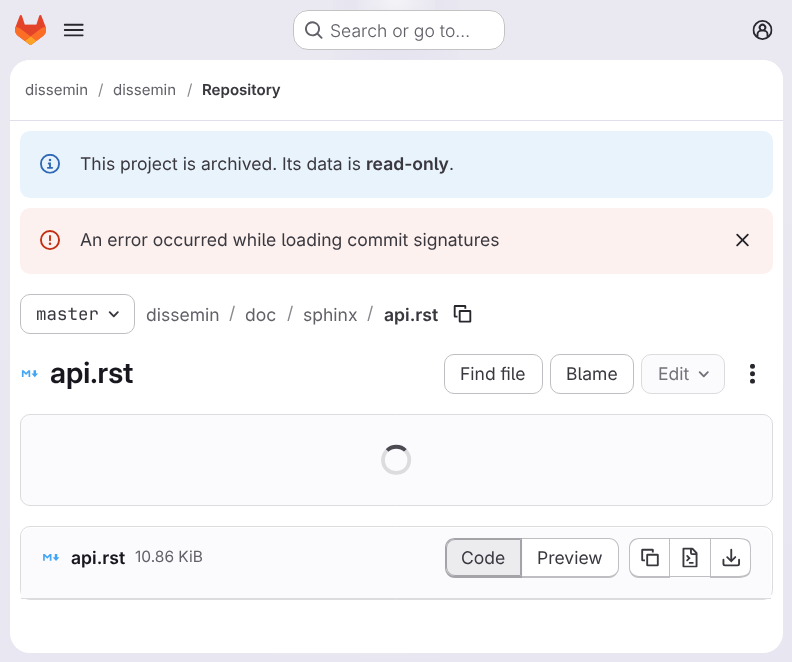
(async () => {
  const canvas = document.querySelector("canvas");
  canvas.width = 792;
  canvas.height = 662;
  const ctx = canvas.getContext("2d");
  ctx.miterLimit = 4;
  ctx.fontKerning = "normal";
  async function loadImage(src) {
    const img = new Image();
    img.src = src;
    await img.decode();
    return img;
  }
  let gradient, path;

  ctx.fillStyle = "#ffffff";
  ctx.fillRect(0, 0, 792, 662);
  gradient = ctx.createLinearGradient(465, 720, 328, -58);
  gradient.addColorStop(0, "#e8e6f0");
  gradient.addColorStop(0.7, "#eae9f2");
  ctx.fillStyle = gradient;
  ctx.fillRect(0, 0, 792, 662);
  gradient = ctx.createRadialGradient(396, 0, 0, 396, 0, 396);
  gradient.addColorStop(0, "#e4e2ed");
  gradient.addColorStop(0.22, "rgba(228, 226, 237, 0)");
  ctx.fillStyle = gradient;
  ctx.beginPath();
  ctx.rect(333, 0, 126, 60);
  ctx.save();
  ctx.clip();
  ctx.scale(1, 663 / 396);
  ctx.fillRect(0, 0, 792, 396);
  ctx.restore();
  gradient = ctx.createRadialGradient(396, 0, 0, 396, 0, 396);
  gradient.addColorStop(0, "#e4e2ec");
  gradient.addColorStop(0.16, "rgba(228, 226, 236, 0)");
  ctx.fillStyle = gradient;
  ctx.beginPath();
  ctx.rect(370, 7, 52, 36);
  ctx.save();
  ctx.clip();
  ctx.scale(1, 663 / 396);
  ctx.fillRect(0, 0, 792, 396);
  ctx.restore();
  gradient = ctx.createRadialGradient(396, 0, 0, 396, 0, 772);
  gradient.addColorStop(0, "rgba(255, 255, 255, 0.6)");
  gradient.addColorStop(0.06, "rgba(255, 255, 255, 0)");
  ctx.fillStyle = gradient;
  ctx.fillRect(357, 0, 78, 10);
  ctx.drawImage(await loadImage("img/1.png"), 15, 15, 31, 30);
  ctx.drawImage(await loadImage("img/2.png"), 63, 23, 21, 14);
  ctx.fillStyle = "#ffffff";
  ctx.beginPath();
  ctx.roundRect(293, 10, 212, 40, 15);
  ctx.fill();
  ctx.beginPath();
  ctx.roundRect(293.5, 10.5, 211, 39, 14.5);
  ctx.strokeStyle = "rgba(5, 5, 6, 0.24)";
  ctx.stroke();
  ctx.drawImage(await loadImage("img/3.png"), 305, 21, 18, 18);
  ctx.drawImage(await loadImage("img/4.png"), 752, 20, 21, 20);
  ctx.beginPath();
  ctx.roundRect(10, 60, 773, 593, 20);
  ctx.fill();
  ctx.beginPath();
  ctx.roundRect(10, 60, 773, 61, [20, 20, 0, 0]);
  ctx.fill();
  ctx.fillStyle = "#e1dfec";
  ctx.fillRect(10, 120, 773, 1);
  ctx.fillStyle = "#e9f3fc";
  ctx.beginPath();
  ctx.roundRect(20, 131, 753, 67, 10);
  ctx.fill();
  ctx.drawImage(await loadImage("img/5.png"), 40, 153, 20, 21);
  ctx.fillStyle = "#fcf1ef";
  ctx.beginPath();
  ctx.roundRect(20, 208, 753, 66, 10);
  ctx.fill();
  ctx.drawImage(await loadImage("img/6.png"), 40, 230, 20, 20);
  ctx.drawImage(await loadImage("img/7.png"), 736, 233, 13, 14);
  ctx.beginPath();
  ctx.roundRect(20.5, 294.5, 114, 39, 9.5);
  ctx.strokeStyle = "#bfbfc3";
  ctx.stroke();
  ctx.drawImage(await loadImage("img/8.png"), 108, 311, 11, 7);
  ctx.drawImage(await loadImage("img/9.png"), 453, 305, 19, 18);
  ctx.drawImage(await loadImage("img/10.png"), 21, 370, 17, 8);
  ctx.beginPath();
  ctx.roundRect(444.5, 354.5, 98, 39, 9.5);
  ctx.stroke();
  ctx.beginPath();
  ctx.roundRect(550.5, 354.5, 83, 39, 9.5);
  ctx.stroke();
  ctx.fillStyle = "#fbfafd";
  ctx.beginPath();
  ctx.roundRect(641.5, 354.5, 83, 39, 9.5);
  ctx.fill();
  ctx.strokeStyle = "#dcdcde";
  ctx.stroke();
  ctx.drawImage(await loadImage("img/11.png"), 698, 371, 11, 7);
  ctx.drawImage(await loadImage("img/12.png"), 750, 363, 5, 21);
  ctx.beginPath();
  ctx.roundRect(20.5, 414.5, 752, 91, 9.5);
  ctx.fill();
  ctx.stroke();
  path = new Path2D("M387 450.5C392 445.5 400.5 445.5 405.5 450.5");
  ctx.strokeStyle = "#4c4b51";
  ctx.lineWidth = 3.8;
  ctx.stroke(path);
  path = new Path2D("M405.5 450.5C408.5 454 410 458.5 409 462.5C406 478 383 475.5 383 460C383 456.5 384.5 453 387 450.5");
  ctx.strokeStyle = "#dcdcde";
  ctx.stroke(path);
  ctx.beginPath();
  ctx.roundRect(20.5, 526.5, 752, 73, 9.5);
  ctx.lineWidth = 1;
  ctx.stroke();
  ctx.beginPath();
  ctx.roundRect(21, 528, 750, 71, [9, 9, 0, 0]);
  ctx.fill();
  ctx.fillStyle = "#dcdcde";
  ctx.fillRect(21, 598, 750, 1);
  ctx.drawImage(await loadImage("img/13.png"), 43, 554, 17, 7);
  ctx.fillStyle = "#ececef";
  ctx.beginPath();
  ctx.roundRect(446.5, 539.5, 74, 36, [8.5, 0, 0, 8.5]);
  ctx.fill();
  ctx.strokeStyle = "#a4a3a8";
  ctx.stroke();
  ctx.fillStyle = "#a4a3a8";
  path = new Path2D("M455 538H521V578H455C449 578 445 573 445 568V548C445 542 449 538 455 538ZM455 539H521V576H455C450 576 446 572 446 568V548C446 543 450 539 455 539Z");
  ctx.fill(path, "evenodd");
  ctx.fillStyle = "#ffffff";
  ctx.beginPath();
  ctx.roundRect(523, 539, 95, 37, [0, 9, 9, 0]);
  ctx.fill();
  ctx.fillStyle = "#bfbfc3";
  path = new Path2D("M522 538H609C614 538 619 542 619 548V568C619 573 614 578 609 578H522ZM522 539H609C614 539 618 543 618 548V568C618 572 614 576 609 576H522Z");
  ctx.fill(path, "evenodd");
  ctx.fillStyle = "#a4a3a8";
  ctx.fillRect(521, 538, 1, 40);
  ctx.fillStyle = "#ffffff";
  ctx.beginPath();
  ctx.roundRect(630, 539, 39, 37, [9, 0, 0, 9]);
  ctx.fill();
  ctx.fillStyle = "#bfbfc3";
  path = new Path2D("M639 538H669V578H639C633 578 629 573 629 568V548C629 542 633 538 639 538ZM639 539H669V576H639C634 576 630 572 630 568V548C630 543 634 539 639 539Z");
  ctx.fill(path, "evenodd");
  ctx.drawImage(await loadImage("img/14.png"), 641, 548, 18, 19);
  for (const [x, y, w, h, color] of [
    [670, 539, 40, 37, "#ffffff"],
    [670, 538, 40, 1, "#bfbfc3"],
    [670, 576, 40, 1, "#bfbfc3"],
    [669, 538, 1, 40, "#bfbfc3"],
  ]) {
    ctx.fillStyle = color;
    ctx.fillRect(x, y, w, h);
  }
  ctx.drawImage(await loadImage("img/15.png"), 682, 547, 16, 21);
  ctx.fillStyle = "#ffffff";
  ctx.beginPath();
  ctx.roundRect(711, 539, 39, 37, [0, 9, 9, 0]);
  ctx.fill();
  ctx.fillStyle = "#bfbfc3";
  path = new Path2D("M711 538H736C753 538 751 543 751 558C751 572 753 578 736 578H711ZM711 539H736C752 539 750 544 750 558C750 571 752 576 736 576H711Z");
  ctx.fill(path, "evenodd");
  ctx.fillRect(710, 538, 1, 40);
  ctx.drawImage(await loadImage("img/16.png"), 722, 548, 18, 19);
  ctx.font = "300 17.5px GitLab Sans";
  ctx.fillStyle = "#626168";
  ctx.fillText("Search or go to…", 330, 37);
  ctx.font = "15px GitLab Sans";
  ctx.fillText("dissemin", 25, 95);
  ctx.fillStyle = "#89888d";
  ctx.fillText("/", 98, 95);
  ctx.fillStyle = "#626168";
  ctx.fillText("dissemin", 113, 95);
  ctx.fillStyle = "#89888d";
  ctx.fillText("/", 187, 95);
  ctx.font = "600 15px GitLab Sans";
  ctx.fillStyle = "#3a383f";
  ctx.fillText("Repository", 202, 95);
  ctx.font = "17.5px GitLab Sans";
  ctx.fillText("This project is archived. Its data is", 80, 170);
  ctx.font = "600 17.5px GitLab Sans";
  ctx.fillText("read-only", 366, 170);
  ctx.font = "17.5px GitLab Sans";
  ctx.fillText(".", 449, 170);
  ctx.fillText("An error occurred while loading commit signatures", 80, 246);
  ctx.font = "17.5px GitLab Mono";
  ctx.fillText("master", 36, 320);
  ctx.font = "17.5px GitLab Sans";
  ctx.fillStyle = "#626168";
  ctx.fillText("dissemin", 146, 321);
  ctx.fillStyle = "#89888d";
  ctx.fillText("/", 229, 319);
  ctx.fillStyle = "#626168";
  ctx.fillText("doc", 245, 321);
  ctx.fillStyle = "#89888d";
  ctx.fillText("/", 287, 319);
  ctx.fillStyle = "#626168";
  ctx.fillText("sphinx", 303, 321);
  ctx.fillStyle = "#89888d";
  ctx.fillText("/", 367, 319);
  ctx.font = "600 17.5px GitLab Sans";
  ctx.fillStyle = "#3a383f";
  ctx.fillText("api.rst", 384, 321);
  ctx.font = "600 29px 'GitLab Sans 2'";
  ctx.fillStyle = "#18171d";
  ctx.fillText("api.rst", 50, 383);
  ctx.font = "17.5px GitLab Sans";
  ctx.fillStyle = "#3a383f";
  ctx.fillText("Find file", 460, 380);
  ctx.fillText("Blame", 566, 380);
  ctx.fillStyle = "#737278";
  ctx.fillText("Edit", 658, 380);
  ctx.font = "600 17.5px GitLab Sans";
  ctx.fillStyle = "#18171d";
  ctx.fillText("api.rst", 71, 564);
  ctx.font = "15.5px GitLab Sans";
  ctx.fillStyle = "#626168";
  ctx.fillText("10.86 KiB", 135, 562);
  ctx.font = "17.5px GitLab Sans";
  ctx.fillStyle = "#3a383f";
  ctx.fillText("Code", 461, 564);
  ctx.fillText("Preview", 537, 564);
})();
